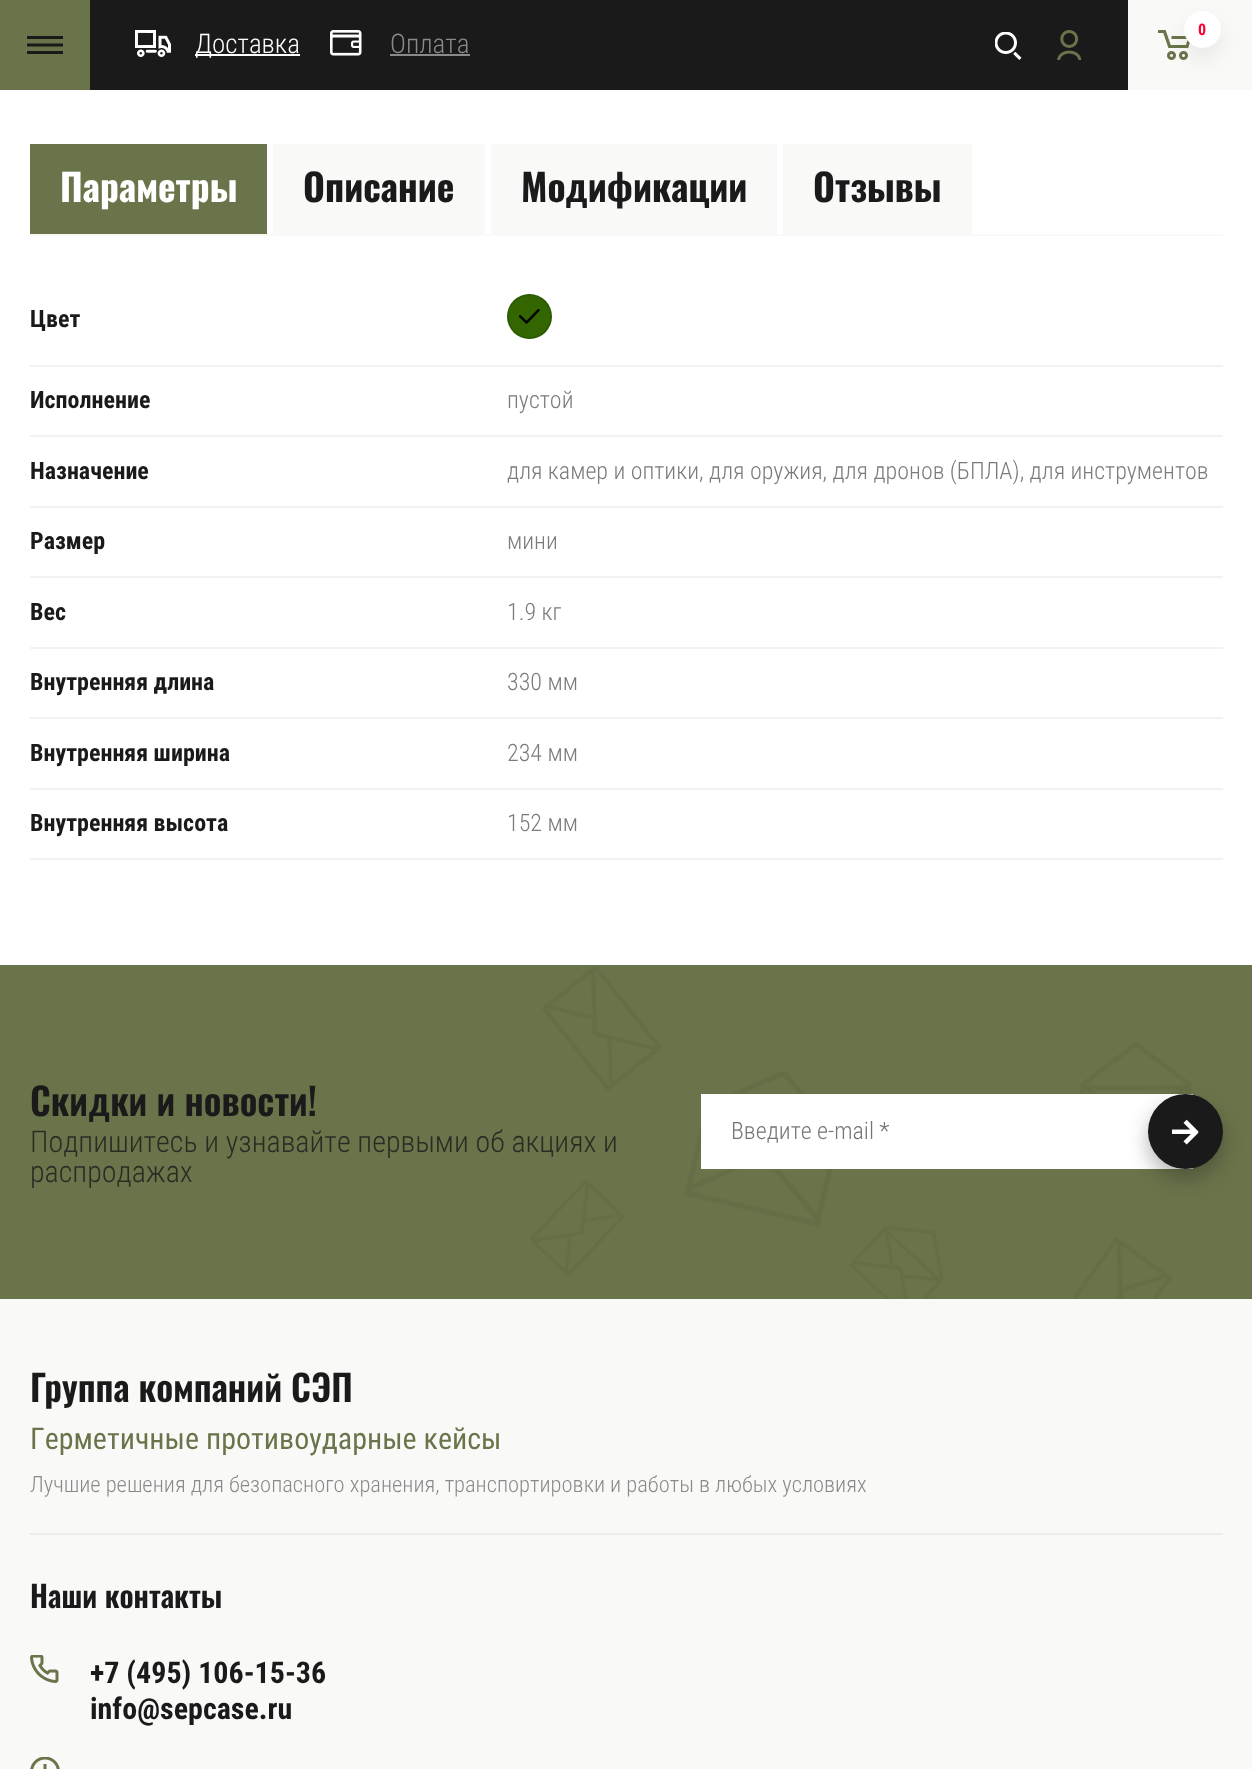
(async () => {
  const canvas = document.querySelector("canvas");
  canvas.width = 1252;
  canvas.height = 1769;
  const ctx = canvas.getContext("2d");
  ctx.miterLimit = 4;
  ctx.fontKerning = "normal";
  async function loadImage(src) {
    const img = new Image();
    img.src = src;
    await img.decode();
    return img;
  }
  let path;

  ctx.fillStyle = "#ffffff";
  ctx.fillRect(0, 0, 1252, 1769);
  ctx.fillStyle = "#1a1a1a";
  ctx.fillRect(90, 0, 1038, 90);
  ctx.fillStyle = "#f9faf8";
  ctx.fillRect(1128, 0, 124, 90);
  ctx.drawImage(await loadImage("img/1.png"), 1158, 30, 32, 30);
  ctx.fillStyle = "rgba(0, 0, 0, 0.07)";
  ctx.filter = "blur(10px)";
  ctx.beginPath();
  ctx.roundRect(1184, 21, 37, 38, 18.5);
  ctx.fill();
  ctx.filter = "none";
  ctx.fillStyle = "#ffffff";
  ctx.beginPath();
  ctx.arc(1202.5, 29.5, 18.5, 0, Math.PI * 2);
  ctx.fill();
  ctx.fillStyle = "#6a744a";
  ctx.fillRect(0, 0, 90, 90);
  ctx.fillStyle = "#1a1a1a";
  path = new Path2D("M27 54V51H63V54ZM27 43.5H63V46.5H27ZM27 36H63V39H27Z");
  ctx.fill(path);
  ctx.drawImage(await loadImage("img/2.png"), 135, 30, 36, 27);
  ctx.fillStyle = "#ffffff";
  ctx.fillRect(195, 54, 105, 2);
  ctx.drawImage(await loadImage("img/3.png"), 330, 30, 32, 26);
  ctx.fillStyle = "#8a8a8a";
  ctx.fillRect(390, 54, 80, 2);
  ctx.drawImage(await loadImage("img/4.png"), 995, 32, 27, 28);
  ctx.drawImage(await loadImage("img/5.png"), 1057, 30, 25, 30);
  for (const [x, y, w, h, color] of [
    [30, 234, 1193, 2, "#f9faf8"],
    [30, 144, 237, 90, "#6a744a"],
    [273, 144, 212, 90, "#f9faf8"],
    [491, 144, 286, 90, "#f9faf8"],
    [783, 144, 189, 90, "#f9faf8"],
    [30, 365, 1193, 2, "#f2f2f2"],
  ]) {
    ctx.fillStyle = color;
    ctx.fillRect(x, y, w, h);
  }
  ctx.fillStyle = "#336600";
  ctx.beginPath();
  ctx.arc(529.5, 316.5, 22.5, 0, Math.PI * 2);
  ctx.fill();
  ctx.drawImage(await loadImage("img/6.png"), 519, 309, 21, 15);
  ctx.beginPath();
  ctx.arc(529.5, 316.5, 21.5, 0, Math.PI * 2);
  ctx.strokeStyle = "rgba(0, 0, 0, 0.1)";
  ctx.lineWidth = 2;
  ctx.stroke();
  for (const [x, y, w, h, color] of [
    [30, 435, 1193, 2, "#f2f2f2"],
    [30, 506, 1193, 2, "#f2f2f2"],
    [30, 576, 1193, 2, "#f2f2f2"],
    [30, 647, 1193, 2, "#f2f2f2"],
    [30, 717, 1193, 2, "#f2f2f2"],
    [30, 788, 1193, 2, "#f2f2f2"],
    [30, 858, 1193, 2, "#f2f2f2"],
    [0, 965, 1252, 334, "#6a744a"],
  ]) {
    ctx.fillStyle = color;
    ctx.fillRect(x, y, w, h);
  }
  ctx.drawImage(await loadImage("img/7.png"), 530, 966, 661, 333);
  ctx.fillStyle = "#ffffff";
  ctx.fillRect(701, 1094, 492, 75);
  ctx.fillStyle = "rgba(26, 26, 26, 0.32)";
  ctx.filter = "blur(10px)";
  ctx.beginPath();
  ctx.roundRect(1148, 1104, 75, 75, 37.5);
  ctx.fill();
  ctx.filter = "none";
  ctx.fillStyle = "#1a1a1a";
  ctx.beginPath();
  ctx.arc(1185.5, 1131.5, 37.5, 0, Math.PI * 2);
  ctx.fill();
  ctx.drawImage(await loadImage("img/8.png"), 1172, 1119, 27, 26);
  ctx.fillStyle = "#f9faf8";
  ctx.fillRect(0, 1299, 1252, 470);
  ctx.fillStyle = "#ecedeb";
  ctx.fillRect(30, 1533, 1193, 2);
  ctx.drawImage(await loadImage("img/9.png"), 30, 1655, 29, 28);
  ctx.drawImage(await loadImage("img/10.png"), 30, 1757, 30, 12);
  ctx.font = "bold 16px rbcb";
  ctx.fillStyle = "#ff0030";
  ctx.fillText("0", 1198, 35);
  ctx.font = "300 27px Roboto Condensed";
  ctx.fillStyle = "#ffffff";
  ctx.fillText("Доставка", 195, 53);
  ctx.fillStyle = "#8a8a8a";
  ctx.fillText("Оплата", 390, 53);
  ctx.font = "bold 37.5px Oswald";
  ctx.fillStyle = "#ffffff";
  ctx.fillText("Параметры", 60, 202);
  ctx.fillStyle = "#1a1a1a";
  for (const [text, x, y] of [
    ["Описание", 303, 202],
    ["Модификации", 521, 202],
    ["Отзывы", 813, 202],
  ]) {
    ctx.fillText(text, x, y);
  }
  ctx.font = "bold 24px rbcb";
  ctx.fillText("Цвет", 30, 327);
  ctx.fillText("Исполнение", 30, 408);
  ctx.font = "300 24px Roboto Condensed";
  ctx.fillStyle = "#7b7b7b";
  ctx.fillText("пустой", 507, 408);
  ctx.font = "bold 24px rbcb";
  ctx.fillStyle = "#1a1a1a";
  ctx.fillText("Назначение", 30, 479);
  ctx.font = "300 24px Roboto Condensed";
  ctx.fillStyle = "#7b7b7b";
  ctx.fillText("для камер и оптики, для оружия, для дронов (БПЛА), для инструментов", 507, 479);
  ctx.font = "bold 24px rbcb";
  ctx.fillStyle = "#1a1a1a";
  ctx.fillText("Размер", 30, 549);
  ctx.font = "300 24px Roboto Condensed";
  ctx.fillStyle = "#7b7b7b";
  ctx.fillText("мини", 507, 549);
  ctx.font = "bold 24px rbcb";
  ctx.fillStyle = "#1a1a1a";
  ctx.fillText("Вес", 30, 620);
  ctx.font = "300 24px Roboto Condensed";
  ctx.fillStyle = "#7b7b7b";
  ctx.fillText("1.9 кг", 507, 620);
  ctx.font = "bold 24px rbcb";
  ctx.fillStyle = "#1a1a1a";
  ctx.fillText("Внутренняя длина", 30, 690);
  ctx.font = "300 24px Roboto Condensed";
  ctx.fillStyle = "#7b7b7b";
  ctx.fillText("330 мм", 507, 690);
  ctx.font = "bold 24px rbcb";
  ctx.fillStyle = "#1a1a1a";
  ctx.fillText("Внутренняя ширина", 30, 761);
  ctx.font = "300 24px Roboto Condensed";
  ctx.fillStyle = "#7b7b7b";
  ctx.fillText("234 мм", 507, 761);
  ctx.font = "bold 24px rbcb";
  ctx.fillStyle = "#1a1a1a";
  ctx.fillText("Внутренняя высота", 30, 831);
  ctx.font = "300 24px Roboto Condensed";
  ctx.fillStyle = "#7b7b7b";
  ctx.fillText("152 мм", 507, 831);
  ctx.font = "600 37.5px Oswald";
  ctx.fillStyle = "#1a1a1a";
  ctx.fillText("Скидки и новости!", 30, 1116);
  ctx.font = "300 30px Roboto Condensed";
  ctx.fillStyle = "#2a2c24";
  ctx.fillText("Подпишитесь и узнавайте первыми об акциях и", 30, 1152);
  ctx.fillText("распродажах", 30, 1182);
  ctx.font = "300 24px Roboto Condensed";
  ctx.fillStyle = "#757575";
  ctx.fillText("Введите e-mail *", 731, 1139);
  ctx.font = "600 36px Oswald";
  ctx.fillStyle = "#1a1a1a";
  ctx.fillText("Группа компаний СЭП", 30, 1402);
  ctx.font = "30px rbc";
  ctx.fillStyle = "#6a744a";
  ctx.fillText("Герметичные противоударные кейсы", 30, 1449);
  ctx.font = "300 22.5px Roboto Condensed";
  ctx.fillStyle = "#8a8a8a";
  ctx.fillText("Лучшие решения для безопасного хранения, транспортировки и работы в любых условиях", 30, 1492);
  ctx.font = "600 30px Oswald";
  ctx.fillStyle = "#1a1a1a";
  ctx.fillText("Наши контакты", 30, 1608);
  ctx.font = "bold 30px rbcb";
  ctx.fillText("+7 (495) 106-15-36", 90, 1683);
  ctx.fillText("info@sepcase.ru", 90, 1719);
})();
